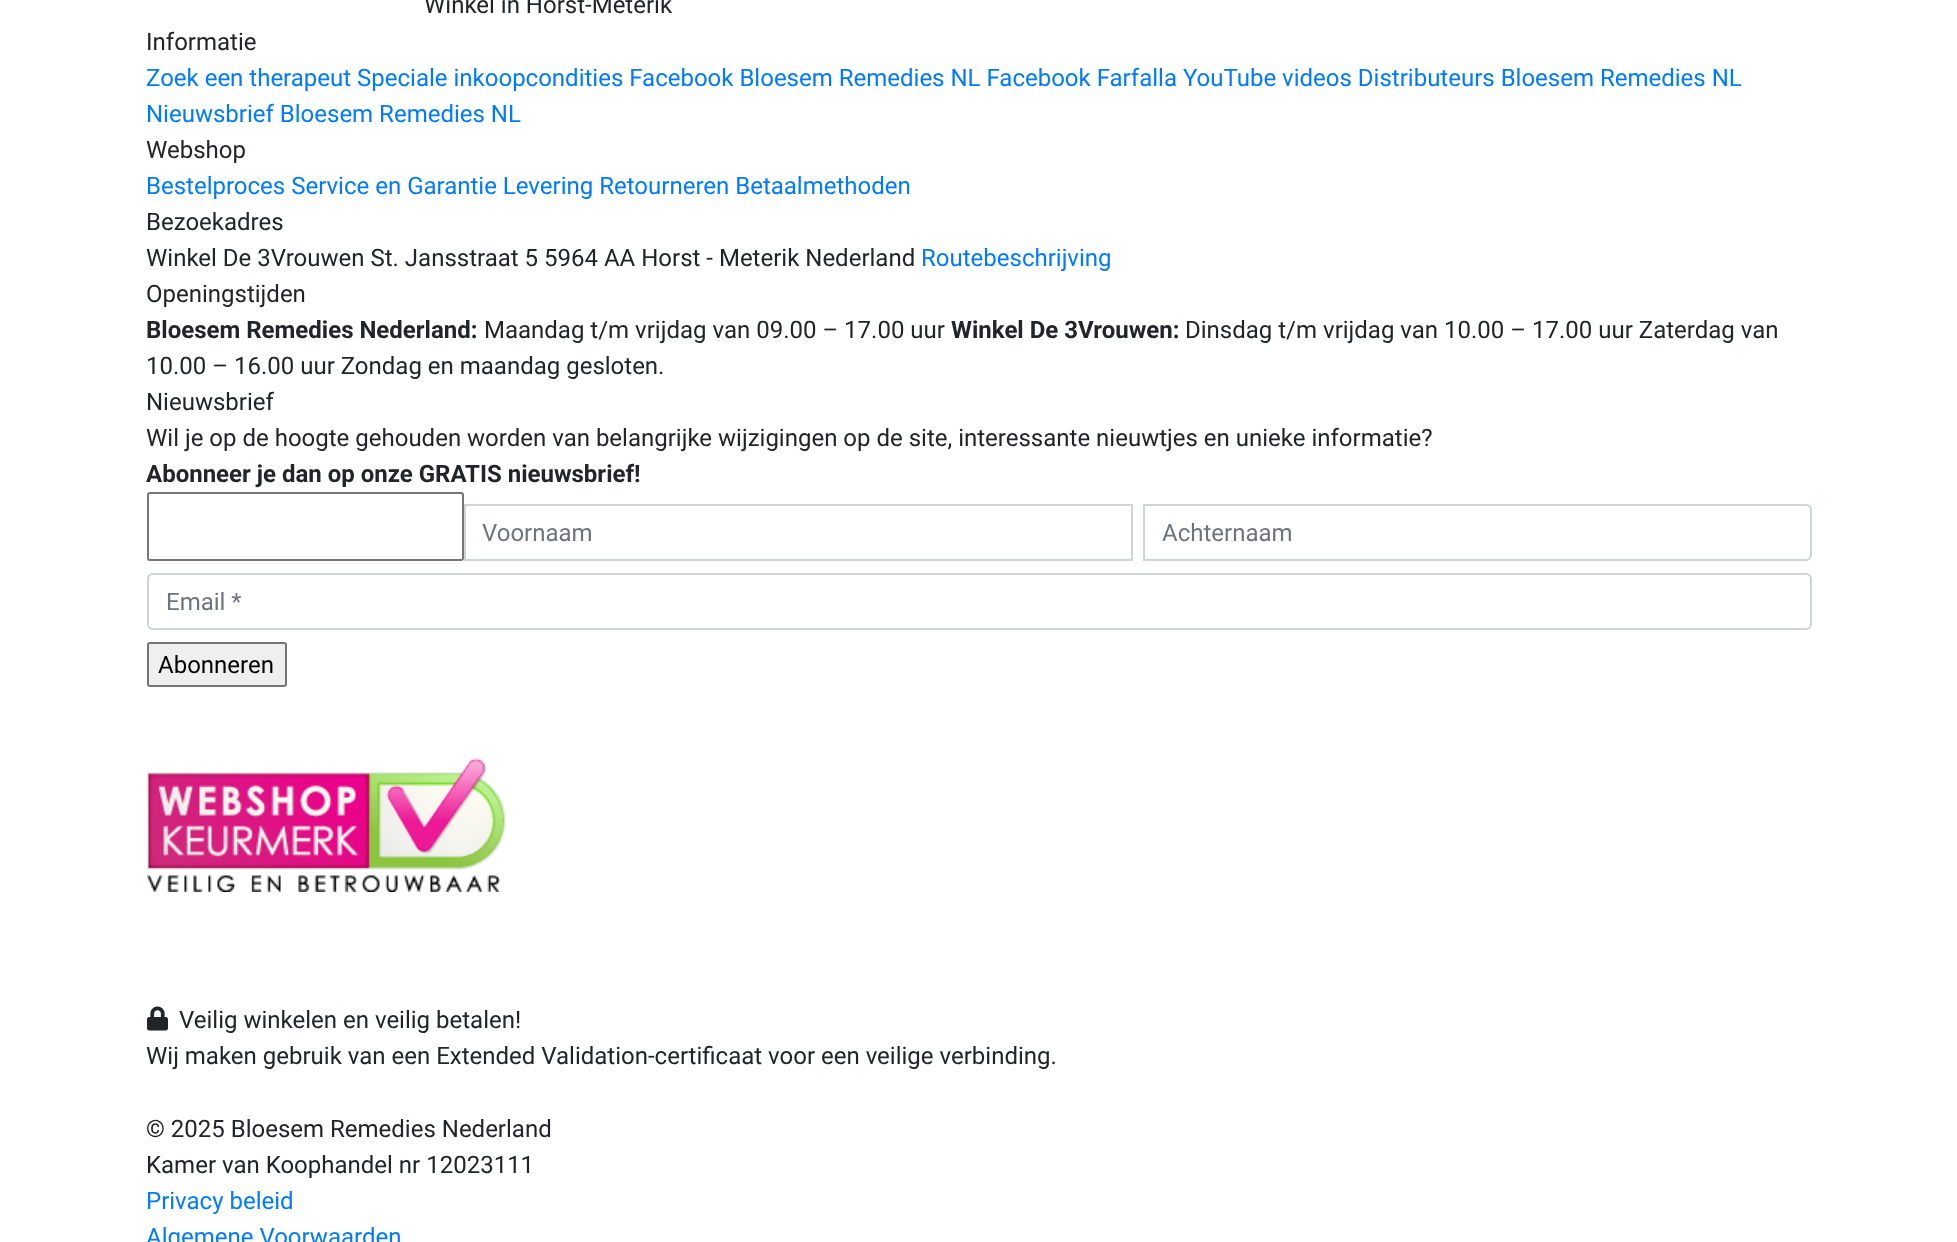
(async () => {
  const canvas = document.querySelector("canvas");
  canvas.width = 1957;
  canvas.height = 1242;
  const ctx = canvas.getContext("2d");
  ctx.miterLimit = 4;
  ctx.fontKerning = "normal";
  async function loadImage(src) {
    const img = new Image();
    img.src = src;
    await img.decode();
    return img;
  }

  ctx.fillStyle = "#ffffff";
  ctx.fillRect(0, 0, 1957, 1242);
  ctx.beginPath();
  ctx.roundRect(148, 493, 315, 67, 2);
  ctx.strokeStyle = "#767676";
  ctx.lineWidth = 2;
  ctx.stroke();
  ctx.strokeStyle = "#ced4da";
  ctx.strokeRect(465, 505, 667, 55);
  ctx.beginPath();
  ctx.roundRect(1144, 505, 667, 55, [0, 5, 5, 0]);
  ctx.stroke();
  ctx.beginPath();
  ctx.roundRect(148, 574, 1663, 55, 5);
  ctx.stroke();
  ctx.fillStyle = "#efefef";
  ctx.beginPath();
  ctx.roundRect(148, 643, 138, 43, 2);
  ctx.fill();
  ctx.strokeStyle = "#767676";
  ctx.stroke();
  ctx.drawImage(await loadImage("img/1.png"), 147, 758, 359, 134);
  ctx.drawImage(await loadImage("img/2.png"), 147, 1006, 21, 25);
  ctx.font = "24px Roboto";
  ctx.fillStyle = "#212529";
  ctx.fillText("Winkel in Horst-Meterik", 424, 13);
  ctx.fillText("Informatie", 146, 50);
  ctx.fillStyle = "#007bff";
  ctx.fillText("Zoek een therapeut Speciale inkoopcondities Facebook Bloesem Remedies NL Facebook Farfalla YouTube videos Distributeurs Bloesem Remedies NL", 146, 86);
  ctx.fillText("Nieuwsbrief Bloesem Remedies NL", 146, 122);
  ctx.fillStyle = "#212529";
  ctx.fillText("Webshop", 146, 158);
  ctx.fillStyle = "#007bff";
  ctx.fillText("Bestelproces Service en Garantie Levering Retourneren Betaalmethoden", 146, 194);
  ctx.fillStyle = "#212529";
  ctx.fillText("Bezoekadres", 146, 230);
  ctx.fillText("Winkel De 3Vrouwen St. Jansstraat 5 5964 AA Horst - Meterik Nederland", 146, 266);
  ctx.fillStyle = "#007bff";
  ctx.fillText("Routebeschrijving", 921, 266);
  ctx.fillStyle = "#212529";
  ctx.fillText("Openingstijden", 146, 302);
  ctx.font = "bold 24px Roboto";
  ctx.fillText("Bloesem Remedies Nederland:", 146, 338);
  ctx.font = "24px Roboto";
  ctx.fillText("Maandag t/m vrijdag van 09.00 – 17.00 uur", 484, 338);
  ctx.font = "bold 24px Roboto";
  ctx.fillText("Winkel De 3Vrouwen:", 951, 338);
  ctx.font = "24px Roboto";
  for (const [text, x, y] of [
    ["Dinsdag t/m vrijdag van 10.00 – 17.00 uur Zaterdag van", 1185, 338],
    ["10.00 – 16.00 uur Zondag en maandag gesloten.", 146, 374],
    ["Nieuwsbrief", 146, 410],
    ["Wil je op de hoogte gehouden worden van belangrijke wijzigingen op de site, interessante nieuwtjes en unieke informatie?", 146, 446],
  ]) {
    ctx.fillText(text, x, y);
  }
  ctx.font = "bold 24px Roboto";
  ctx.fillText("Abonneer je dan op onze GRATIS nieuwsbrief!", 146, 482);
  ctx.font = "24px Roboto";
  ctx.fillStyle = "#6c757d";
  for (const [text, x, y] of [
    ["Voornaam", 482, 541],
    ["Achternaam", 1162, 541],
    ["Email *", 166, 610],
  ]) {
    ctx.fillText(text, x, y);
  }
  ctx.fillStyle = "#000000";
  ctx.fillText("Abonneren", 158, 673);
  ctx.fillStyle = "#212529";
  for (const [text, x, y] of [
    ["Veilig winkelen en veilig betalen!", 179, 1028],
    ["Wij maken gebruik van een Extended Validation-certificaat voor een veilige verbinding.", 146, 1064],
    ["© 2025 Bloesem Remedies Nederland", 146, 1137],
    ["Kamer van Koophandel nr 12023111", 146, 1173],
  ]) {
    ctx.fillText(text, x, y);
  }
  ctx.fillStyle = "#007bff";
  ctx.fillText("Privacy beleid", 146, 1209);
  ctx.fillText("Algemene Voorwaarden", 146, 1245);
})();
